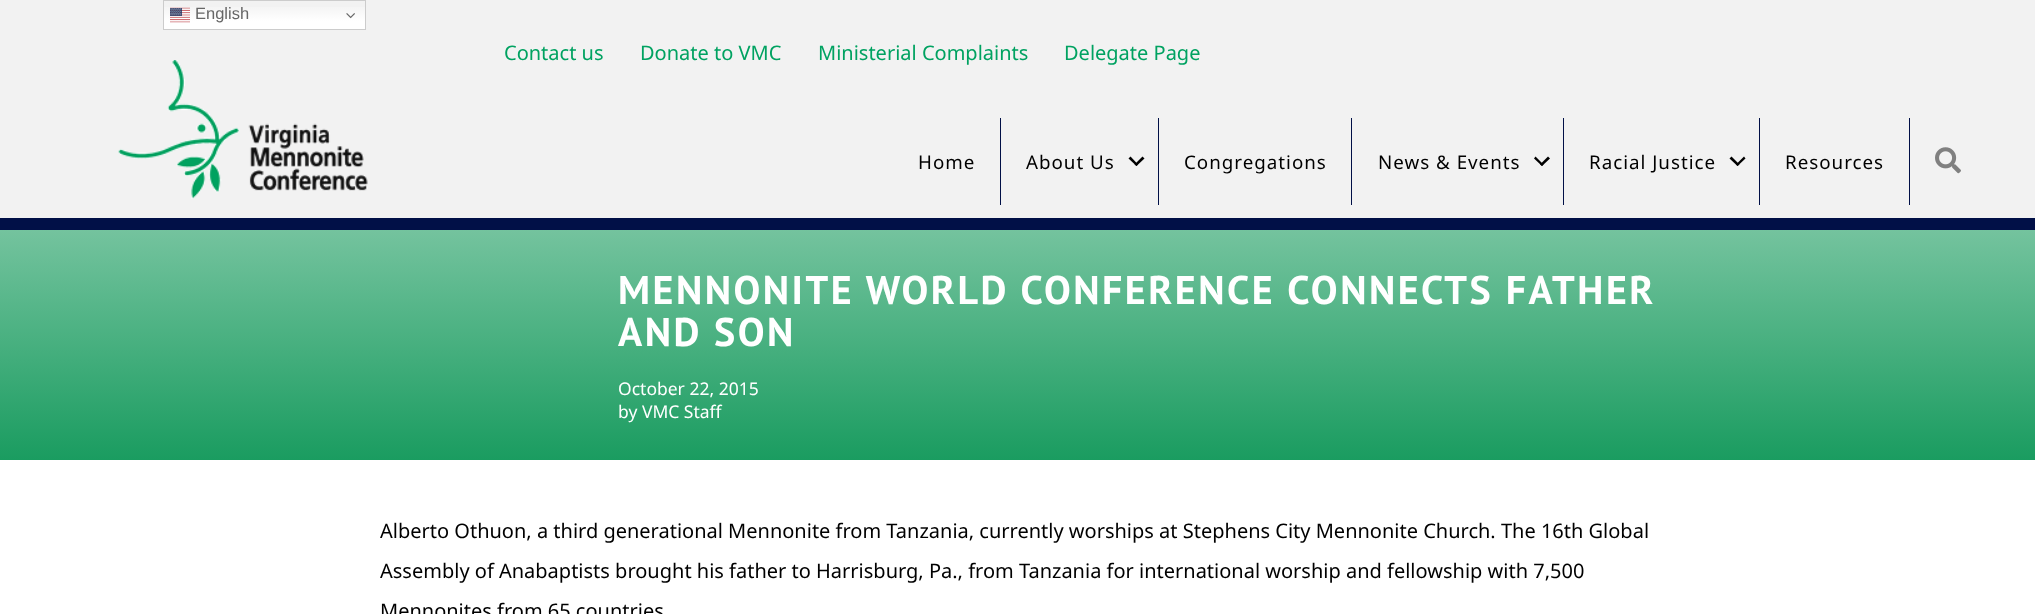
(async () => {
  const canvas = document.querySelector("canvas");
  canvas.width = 2035;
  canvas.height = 614;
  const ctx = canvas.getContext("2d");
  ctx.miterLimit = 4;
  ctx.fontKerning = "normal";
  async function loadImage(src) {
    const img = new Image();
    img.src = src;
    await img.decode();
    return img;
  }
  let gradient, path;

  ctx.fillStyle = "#f2f2f2";
  ctx.fillRect(0, 0, 2035, 614);
  gradient = ctx.createLinearGradient(264, 0, 264, 30);
  gradient.addColorStop(0, "#efefef");
  gradient.addColorStop(0.7, "#ffffff");
  ctx.fillStyle = gradient;
  ctx.fillRect(164, 7, 201, 22);
  ctx.strokeStyle = "#cccccc";
  ctx.strokeRect(163.5, 0.5, 202, 29);
  ctx.drawImage(await loadImage("img/1.png"), 170, 7, 20, 16);
  ctx.drawImage(await loadImage("img/2.png"), 346, 13, 9, 6);
  ctx.fillStyle = "#011047";
  ctx.fillRect(0, 218, 2035, 12);
  ctx.drawImage(await loadImage("img/3.png"), 118, 60, 250, 139);
  ctx.fillRect(1000, 118, 1, 87);
  ctx.fillStyle = "#000000";
  path = new Path2D("M1142.5 156.5L1144.5 158.5L1136.5 166L1134.5 164.5Z");
  ctx.fill(path);
  path = new Path2D("M1130.5 156.5L1138 164.5L1136.5 166L1128.5 158.5Z");
  ctx.fill(path);
  ctx.fillStyle = "#011047";
  ctx.fillRect(1158, 118, 1, 87);
  ctx.fillRect(1351, 118, 1, 87);
  ctx.fillStyle = "#000000";
  path = new Path2D("M1548 156.5L1550 158.5L1542 166L1540 164.5Z");
  ctx.fill(path);
  path = new Path2D("M1535.5 156.5L1543.5 164.5L1542 166L1534 158.5Z");
  ctx.fill(path);
  ctx.fillStyle = "#011047";
  ctx.fillRect(1563, 118, 1, 87);
  ctx.fillStyle = "#000000";
  path = new Path2D("M1744 156.5L1745.5 158.5L1737.5 166L1736 164.5Z");
  ctx.fill(path);
  path = new Path2D("M1731.5 156.5L1739.5 164.5L1737.5 166L1729.5 158.5Z");
  ctx.fill(path);
  ctx.fillStyle = "#011047";
  ctx.fillRect(1909, 118, 1, 87);
  ctx.fillRect(1759, 118, 1, 87);
  ctx.drawImage(await loadImage("img/4.png"), 1935, 147, 26, 27);
  ctx.fillStyle = "#ffffff";
  ctx.fillRect(0, 460, 2035, 154);
  gradient = ctx.createLinearGradient(1018, 230, 1018, 460);
  gradient.addColorStop(0, "#74c39e");
  gradient.addColorStop(1, "#1a9c60");
  ctx.fillStyle = gradient;
  ctx.fillRect(0, 230, 2035, 230);
  ctx.font = "16.5px Liberation Sans";
  ctx.fillStyle = "#666666";
  ctx.fillText("English", 195, 19);
  ctx.font = "20px Noto Sans";
  ctx.fillStyle = "#00a261";
  for (const [text, x, y] of [
    ["Contact us", 504, 60],
    ["Donate to VMC", 640, 60],
    ["Ministerial Complaints", 818, 60],
    ["Delegate Page", 1064, 60],
  ]) {
    ctx.fillText(text, x, y);
  }
  ctx.letterSpacing = "1px";
  ctx.font = "18.75px Noto Sans";
  ctx.fillStyle = "#000000";
  for (const [text, x, y] of [
    ["Home", 918, 169],
    ["About Us", 1026, 169],
    ["Congregations", 1184, 169],
    ["News & Events", 1378, 169],
    ["Racial Justice", 1589, 169],
    ["Resources", 1785, 169],
  ]) {
    ctx.fillText(text, x, y);
  }
  ctx.letterSpacing = "2.5px";
  ctx.font = "bold 40px PT Sans";
  ctx.fillStyle = "#ffffff";
  ctx.fillText("MENNONITE WORLD CONFERENCE CONNECTS FATHER", 618, 304);
  ctx.fillText("AND SON", 618, 346);
  ctx.letterSpacing = "0px";
  ctx.font = "17.5px Noto Sans";
  ctx.fillText("October 22, 2015", 618, 395);
  ctx.fillText("by VMC Staff", 618, 418);
  ctx.font = "20px Noto Sans";
  ctx.fillStyle = "#000000";
  for (const [text, x, y] of [
    ["Alberto Othuon, a third generational Mennonite from Tanzania, currently worships at Stephens City Mennonite Church. The 16th Global", 380, 538],
    ["Assembly of Anabaptists brought his father to Harrisburg, Pa., from Tanzania for international worship and fellowship with 7,500", 380, 578],
    ["Mennonites from 65 countries", 380, 618],
  ]) {
    ctx.fillText(text, x, y);
  }
})();
